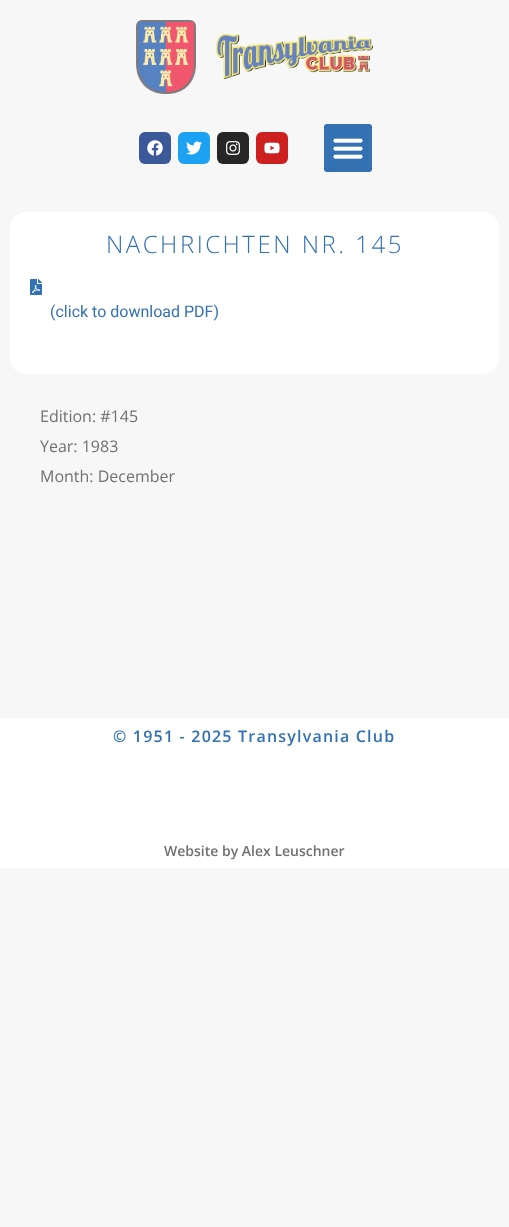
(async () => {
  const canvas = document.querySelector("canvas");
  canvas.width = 509;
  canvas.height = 1227;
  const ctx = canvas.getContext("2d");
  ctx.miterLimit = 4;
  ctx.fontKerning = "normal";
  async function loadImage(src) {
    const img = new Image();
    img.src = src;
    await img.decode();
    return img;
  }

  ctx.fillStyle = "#f7f7f7";
  ctx.fillRect(0, 0, 509, 1227);
  ctx.drawImage(await loadImage("img/1.png"), 136, 20, 60, 74);
  ctx.drawImage(await loadImage("img/2.png"), 216, 34, 157, 45);
  ctx.fillStyle = "#3b5998";
  ctx.beginPath();
  ctx.roundRect(139, 132, 32, 32, 6);
  ctx.fill();
  ctx.drawImage(await loadImage("img/3.png"), 147, 140, 16, 16);
  ctx.fillStyle = "#1da1f2";
  ctx.beginPath();
  ctx.roundRect(178, 132, 32, 32, 6);
  ctx.fill();
  ctx.drawImage(await loadImage("img/4.png"), 186, 141, 16, 14);
  ctx.fillStyle = "#262626";
  ctx.beginPath();
  ctx.roundRect(217, 132, 32, 32, 6);
  ctx.fill();
  ctx.drawImage(await loadImage("img/5.png"), 226, 141, 14, 14);
  ctx.fillStyle = "#cd201f";
  ctx.beginPath();
  ctx.roundRect(256, 132, 32, 32, 6);
  ctx.fill();
  ctx.drawImage(await loadImage("img/6.png"), 264, 142, 16, 12);
  ctx.fillStyle = "#3371b2";
  ctx.beginPath();
  ctx.roundRect(324, 124, 48, 48, 3);
  ctx.fill();
  ctx.drawImage(await loadImage("img/7.png"), 333, 138, 30, 21);
  ctx.fillStyle = "#ffffff";
  ctx.beginPath();
  ctx.roundRect(10, 212, 489, 162, 16);
  ctx.fill();
  ctx.drawImage(await loadImage("img/8.png"), 30, 279, 12, 16);
  ctx.fillRect(0, 718, 509, 150);
  ctx.letterSpacing = "2.5px";
  ctx.font = "300 24px Open Sans";
  ctx.fillStyle = "#3371b2";
  ctx.fillText("NACHRICHTEN NR. 145", 106, 253);
  ctx.letterSpacing = "0px";
  ctx.font = "16px Roboto";
  ctx.fillText("(click to download PDF)", 50, 317);
  ctx.font = "16px Open Sans";
  ctx.fillStyle = "#707070";
  for (const [text, x, y] of [
    ["Edition: #145", 40, 422],
    ["Year: 1983", 40, 452],
    ["Month: December", 40, 482],
  ]) {
    ctx.fillText(text, x, y);
  }
  ctx.letterSpacing = "1.2px";
  ctx.font = "600 16px Open Sans";
  ctx.fillStyle = "#3371b2";
  ctx.fillText("© 1951 - 2025 Transylvania Club", 113, 742);
  ctx.letterSpacing = "0px";
  ctx.font = "600 14px Open Sans";
  ctx.fillStyle = "#707070";
  ctx.fillText("Website by Alex Leuschner", 164, 856);
})();
